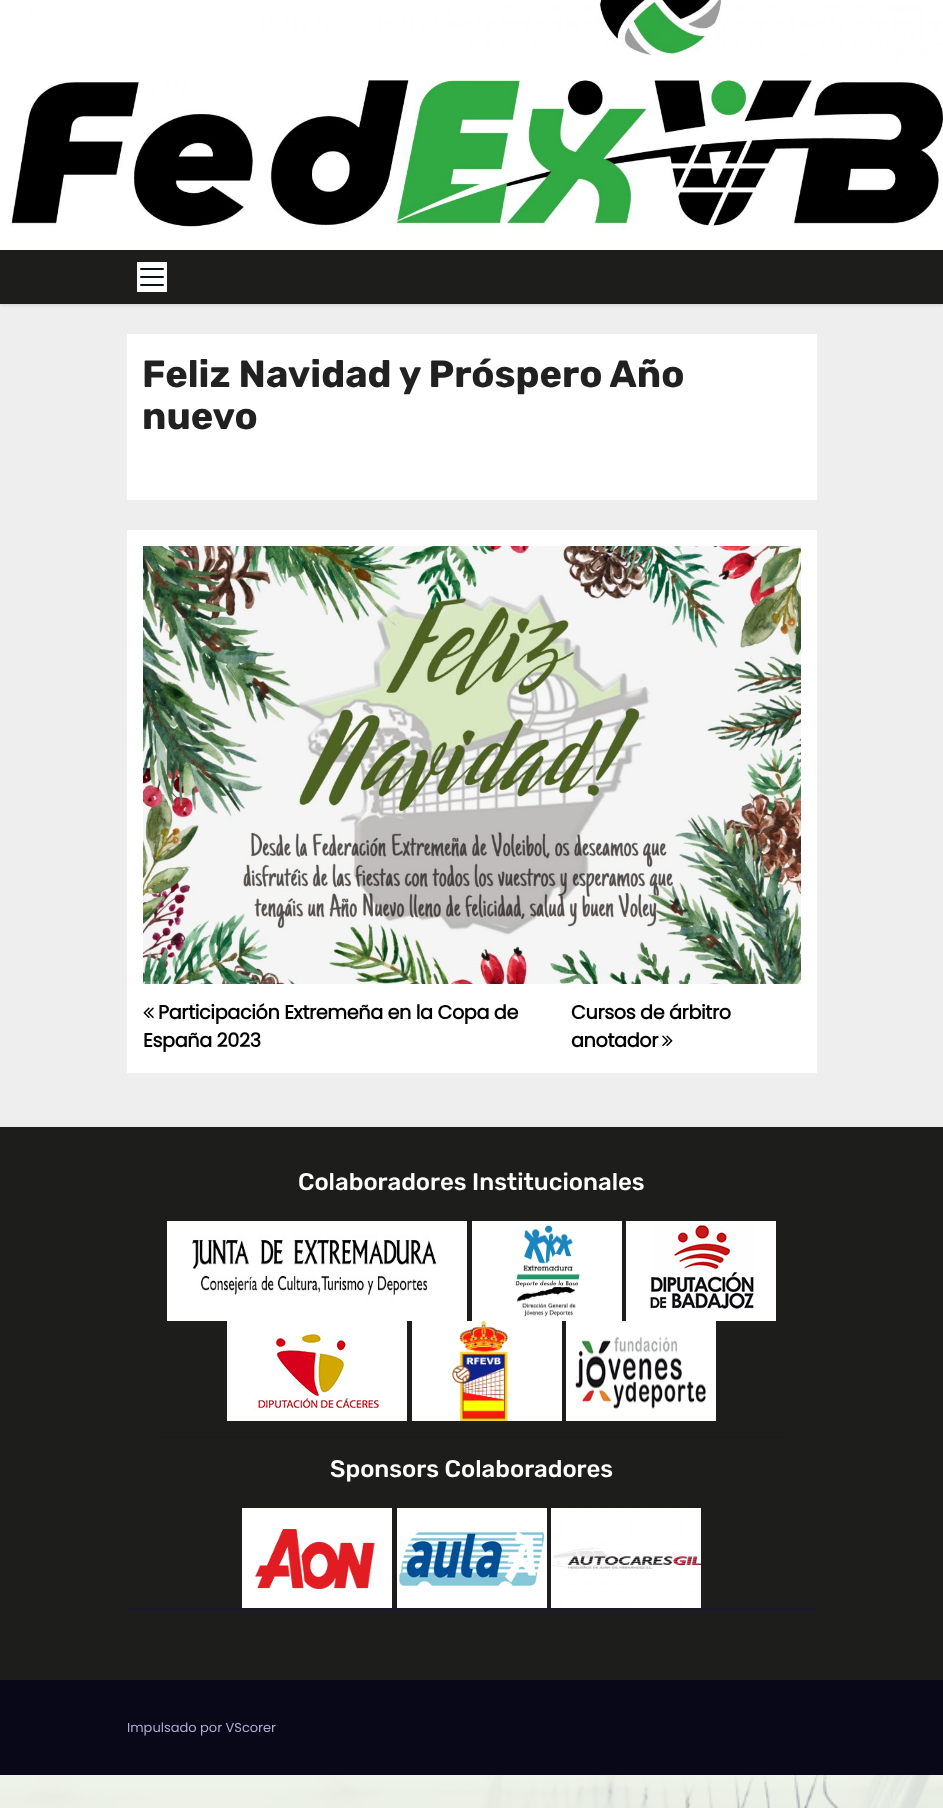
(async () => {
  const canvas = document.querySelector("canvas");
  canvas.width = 943;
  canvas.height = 1808;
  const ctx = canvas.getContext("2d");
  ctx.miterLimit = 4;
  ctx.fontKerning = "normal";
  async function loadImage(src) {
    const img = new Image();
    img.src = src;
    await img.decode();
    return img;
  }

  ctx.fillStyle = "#ffffff";
  ctx.fillRect(0, 0, 943, 1808);
  ctx.drawImage(await loadImage("img/1.png"), 0, 1775, 943, 33);
  ctx.fillStyle = "#eeeeee";
  ctx.fillRect(0, 304, 943, 823);
  ctx.drawImage(await loadImage("img/2.png"), 0, 0, 943, 250);
  ctx.fillStyle = "rgba(0, 0, 0, 0.08)";
  ctx.filter = "blur(1px)";
  ctx.beginPath();
  ctx.rect(0, 252, 943, 54);
  ctx.fill();
  ctx.filter = "none";
  ctx.fillStyle = "#1d1d1b";
  ctx.fillRect(0, 250, 943, 54);
  ctx.fillStyle = "#ffffff";
  ctx.fillRect(137, 262, 30, 30);
  ctx.drawImage(await loadImage("img/3.png"), 140, 268, 24, 18);
  ctx.fillRect(127, 334, 690, 166);
  ctx.fillRect(127, 530, 690, 543);
  ctx.drawImage(await loadImage("img/4.png"), 143, 546, 658, 438);
  ctx.drawImage(await loadImage("img/5.png"), 143, 1007, 11, 12);
  ctx.drawImage(await loadImage("img/6.png"), 662, 1035, 11, 12);
  ctx.fillStyle = "#1d1d1b";
  ctx.fillRect(0, 1127, 943, 553);
  ctx.drawImage(await loadImage("img/7.png"), 167, 1221, 300, 100);
  ctx.drawImage(await loadImage("img/8.png"), 472, 1221, 150, 100);
  ctx.drawImage(await loadImage("img/9.png"), 626, 1221, 150, 100);
  ctx.drawImage(await loadImage("img/10.png"), 227, 1321, 180, 100);
  ctx.drawImage(await loadImage("img/11.png"), 412, 1321, 150, 100);
  ctx.drawImage(await loadImage("img/12.png"), 566, 1321, 150, 100);
  ctx.fillStyle = "#1a1a18";
  ctx.fillRect(157, 1437, 630, 1);
  ctx.drawImage(await loadImage("img/13.png"), 242, 1508, 150, 100);
  ctx.drawImage(await loadImage("img/14.png"), 397, 1508, 150, 100);
  ctx.drawImage(await loadImage("img/15.png"), 551, 1508, 150, 100);
  ctx.fillStyle = "#1a182e";
  ctx.fillRect(127, 1608, 690, 2);
  ctx.fillStyle = "#090818";
  ctx.fillRect(0, 1680, 943, 95);
  ctx.font = "bold 38px Rubik";
  ctx.fillStyle = "#212121";
  ctx.fillText("Feliz Navidad y Próspero Año", 142, 387);
  ctx.fillText("nuevo", 142, 429);
  ctx.letterSpacing = "-0.4px";
  ctx.font = "bold 19.25px Poppins";
  ctx.fillStyle = "#000000";
  for (const [text, x, y] of [
    ["Participación Extremeña en la Copa de", 158, 1019],
    ["España 2023", 143, 1047],
    ["Cursos de árbitro", 571, 1019],
    ["anotador", 571, 1047],
  ]) {
    ctx.fillText(text, x, y);
  }
  ctx.letterSpacing = "0px";
  ctx.font = "500 24px Rubik";
  ctx.fillStyle = "#ffffff";
  ctx.fillText("Colaboradores Institucionales", 298, 1190);
  ctx.fillText("Sponsors Colaboradores", 330, 1477);
  ctx.font = "13px Poppins";
  ctx.fillStyle = "#aaaed1";
  ctx.fillText("Impulsado por VScorer", 127, 1732);
})();
